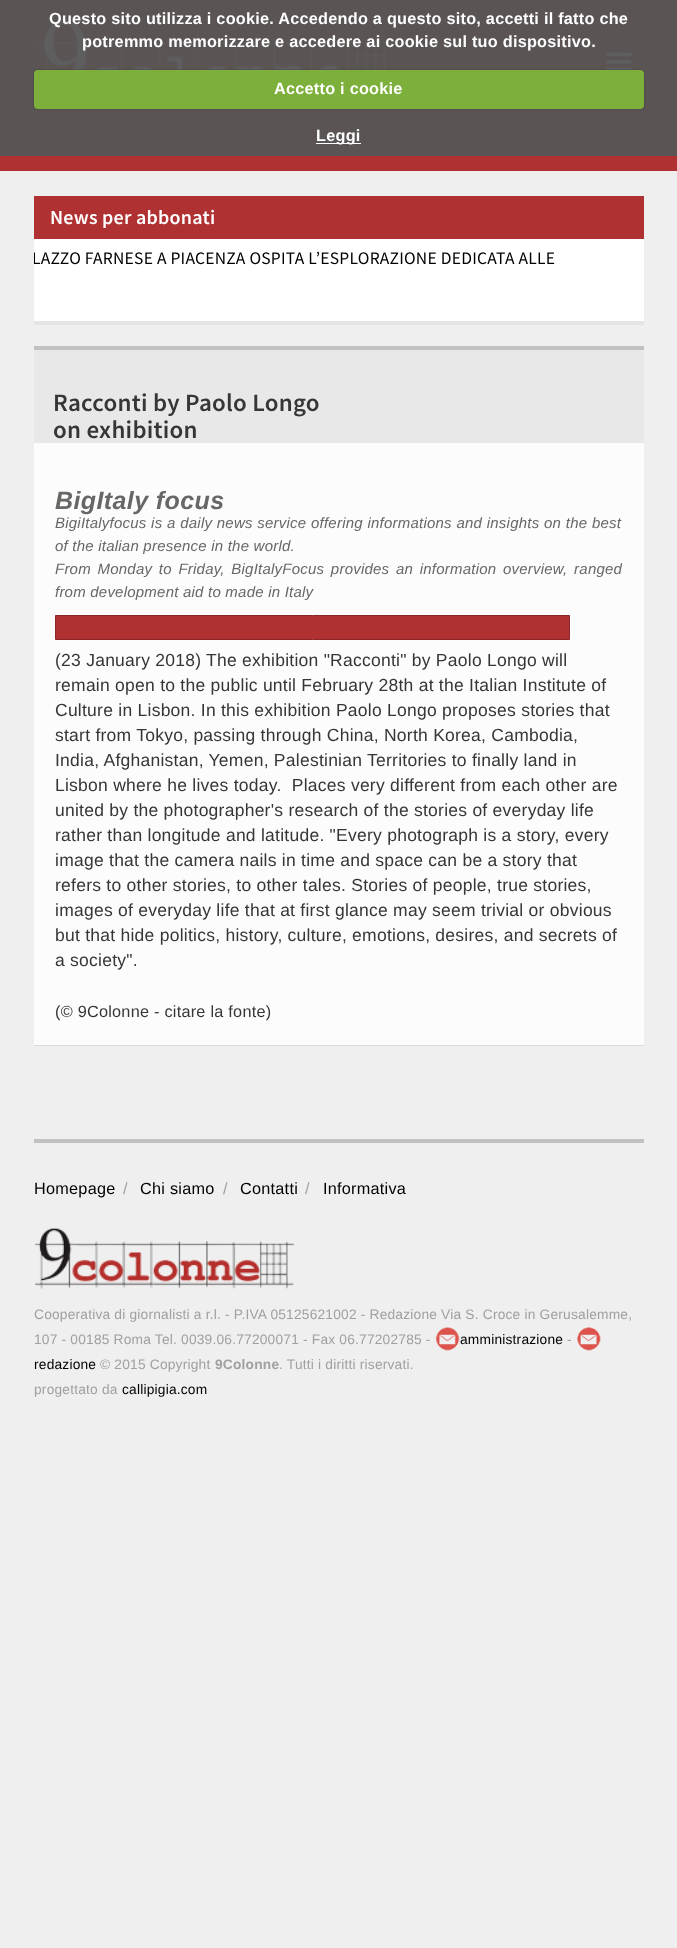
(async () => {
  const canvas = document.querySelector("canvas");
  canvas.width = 677;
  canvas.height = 1948;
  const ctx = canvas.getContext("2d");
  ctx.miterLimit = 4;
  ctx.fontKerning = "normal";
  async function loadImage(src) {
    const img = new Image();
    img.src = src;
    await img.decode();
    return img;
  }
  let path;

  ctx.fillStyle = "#f0efef";
  ctx.fillRect(0, 0, 677, 1948);
  ctx.fillStyle = "#5b5454";
  ctx.fillRect(0, 0, 677, 156);
  ctx.drawImage(await loadImage("img/1.png"), 37, 19, 359, 51);
  ctx.drawImage(await loadImage("img/2.png"), 605, 52, 27, 18);
  ctx.fillStyle = "rgba(0, 0, 0, 0.25)";
  ctx.filter = "blur(1px)";
  ctx.beginPath();
  ctx.roundRect(34, 70, 610, 39, 4);
  ctx.fill();
  ctx.filter = "none";
  ctx.fillStyle = "#7daf3b";
  ctx.beginPath();
  ctx.roundRect(34, 70, 610, 39, 4);
  ctx.fill();
  ctx.fillStyle = "#ffffff";
  ctx.fillRect(316, 143, 45, 1);
  ctx.fillStyle = "#b03131";
  ctx.fillRect(0, 156, 677, 15);
  ctx.fillStyle = "#e6e5e5";
  path = new Path2D("M34 321V325H644V200V321Z");
  ctx.fill(path);
  ctx.fillStyle = "#ffffff";
  ctx.fillRect(34, 239, 610, 82);
  ctx.fillStyle = "#b03131";
  ctx.fillRect(34, 196, 610, 43);
  ctx.fillStyle = "rgba(0, 0, 0, 0.08)";
  ctx.filter = "blur(0.5px)";
  ctx.beginPath();
  ctx.rect(34, 444, 610, 602);
  ctx.fill();
  ctx.filter = "none";
  for (const [x, y, w, h, color] of [
    [34, 350, 610, 93, "#e8e8e8"],
    [34, 346, 610, 4, "#c1c1c1"],
    [34, 443, 610, 602, "#fcfcfc"],
  ]) {
    ctx.fillStyle = color;
    ctx.fillRect(x, y, w, h);
  }
  ctx.fillStyle = "#b03131";
  ctx.beginPath();
  ctx.rect(55.5, 615.5, 514, 24);
  ctx.fill();
  ctx.strokeStyle = "#8d2727";
  ctx.stroke();
  ctx.fillStyle = "#c1c1c1";
  ctx.fillRect(34, 1139, 610, 4);
  ctx.drawImage(await loadImage("img/3.png"), 34, 1227, 260, 62);
  ctx.drawImage(await loadImage("img/4.png"), 435, 1327, 25, 24);
  ctx.drawImage(await loadImage("img/5.png"), 577, 1327, 24, 24);
  ctx.letterSpacing = "0.25px";
  ctx.font = "bold 16.25px Liberation Sans";
  ctx.fillStyle = "#ffffff";
  for (const [text, x, y] of [
    ["Questo sito utilizza i cookie. Accedendo a questo sito, accetti il fatto che", 49, 24],
    ["potremmo memorizzare e accedere ai cookie sul tuo dispositivo.", 82, 47],
    ["Accetto i cookie", 274, 94],
    ["Leggi", 316, 141],
  ]) {
    ctx.fillText(text, x, y);
  }
  ctx.font = "600 20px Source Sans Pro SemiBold";
  ctx.fillText("News per abbonati", 50, 224);
  ctx.save();
  ctx.beginPath();
  ctx.rect(34, 239, 610, 82);
  ctx.clip();
  ctx.font = "17.5px Source Sans Pro";
  ctx.fillStyle = "#000000";
  ctx.fillText("LAZZO FARNESE A PIACENZA OSPITA L’ESPLORAZIONE DEDICATA ALLE", 32, 264);
  ctx.restore();
  ctx.font = "600 25px Source Sans Pro SemiBold";
  ctx.fillStyle = "#363635";
  ctx.fillText("Racconti by Paolo Longo", 53, 411);
  ctx.fillText("on exhibition", 53, 438);
  ctx.letterSpacing = "0.4px";
  ctx.font = "italic bold 25px Liberation Sans";
  ctx.fillStyle = "#686765";
  ctx.fillText("BigItaly focus", 55, 509);
  ctx.letterSpacing = "0.22px";
  ctx.wordSpacing = "0.25px";
  ctx.font = "italic 15px Liberation Sans";
  ctx.fillText("BigiItalyfocus is a daily news service offering informations and insights on the best", 55, 528);
  ctx.wordSpacing = "0px";
  ctx.fillText("of the italian presence in the world.", 55, 551);
  ctx.wordSpacing = "2.25px";
  ctx.fillText("From Monday to Friday, BigItalyFocus provides an information overview, ranged", 55, 574);
  ctx.wordSpacing = "0px";
  ctx.fillText("from development aid to made in Italy", 55, 597);
  ctx.letterSpacing = "0.25px";
  ctx.font = "17.5px Liberation Sans";
  ctx.fillStyle = "#363635";
  for (const [text, x, y] of [
    ["(23 January 2018) The exhibition \"Racconti\" by Paolo Longo will", 55, 666],
    ["remain open to the public until February 28th at the Italian Institute of", 55, 691],
    ["Culture in Lisbon. In this exhibition Paolo Longo proposes stories that", 55, 716],
    ["start from Tokyo, passing through China, North Korea, Cambodia,", 55, 741],
    ["India, Afghanistan, Yemen, Palestinian Territories to finally land in", 55, 766],
    ["Lisbon where he lives today.  Places very different from each other are", 55, 791],
    ["united by the photographer's research of the stories of everyday life", 55, 816],
    ["rather than longitude and latitude. \"Every photograph is a story, every", 55, 841],
    ["image that the camera nails in time and space can be a story that", 55, 866],
    ["refers to other stories, to other tales. Stories of people, true stories,", 55, 891],
    ["images of everyday life that at first glance may seem trivial or obvious", 55, 916],
    ["but that hide politics, history, culture, emotions, desires, and secrets of", 55, 941],
    ["a society\".", 55, 966],
  ]) {
    ctx.fillText(text, x, y);
  }
  ctx.font = "16.25px Liberation Sans";
  ctx.fillText("(© 9Colonne - citare la fonte)", 55, 1017);
  ctx.fillStyle = "#000000";
  ctx.fillText("Homepage", 34, 1194);
  ctx.fillStyle = "#a0a0a0";
  ctx.fillText("/", 123, 1194);
  ctx.fillStyle = "#000000";
  ctx.fillText("Chi siamo", 140, 1194);
  ctx.fillStyle = "#a0a0a0";
  ctx.fillText("/", 223, 1194);
  ctx.fillStyle = "#000000";
  ctx.fillText("Contatti", 240, 1194);
  ctx.fillStyle = "#a0a0a0";
  ctx.fillText("/", 305, 1194);
  ctx.fillStyle = "#000000";
  ctx.fillText("Informativa", 323, 1194);
  ctx.letterSpacing = "0.2px";
  ctx.font = "13.75px Liberation Sans";
  ctx.fillStyle = "#a0a0a0";
  ctx.fillText("Cooperativa di giornalisti a r.l. - P.IVA 05125621002 - Redazione Via S. Croce in Gerusalemme,", 34, 1319);
  ctx.fillText("107 - 00185 Roma Tel. 0039.06.77200071 - Fax 06.77202785 -", 34, 1344);
  ctx.fillStyle = "#000000";
  ctx.fillText("amministrazione", 460, 1344);
  ctx.fillStyle = "#a0a0a0";
  ctx.fillText("-", 567, 1344);
  ctx.fillStyle = "#000000";
  ctx.fillText("redazione", 34, 1369);
  ctx.fillStyle = "#a0a0a0";
  ctx.fillText("© 2015 Copyright", 100, 1369);
  ctx.font = "bold 13.75px Liberation Sans";
  ctx.fillText("9Colonne", 215, 1369);
  ctx.font = "13.75px Liberation Sans";
  ctx.fillText(". Tutti i diritti riservati.", 279, 1369);
  ctx.fillText("progettato da", 34, 1394);
  ctx.fillStyle = "#000000";
  ctx.fillText("callipigia.com", 122, 1394);
})();
